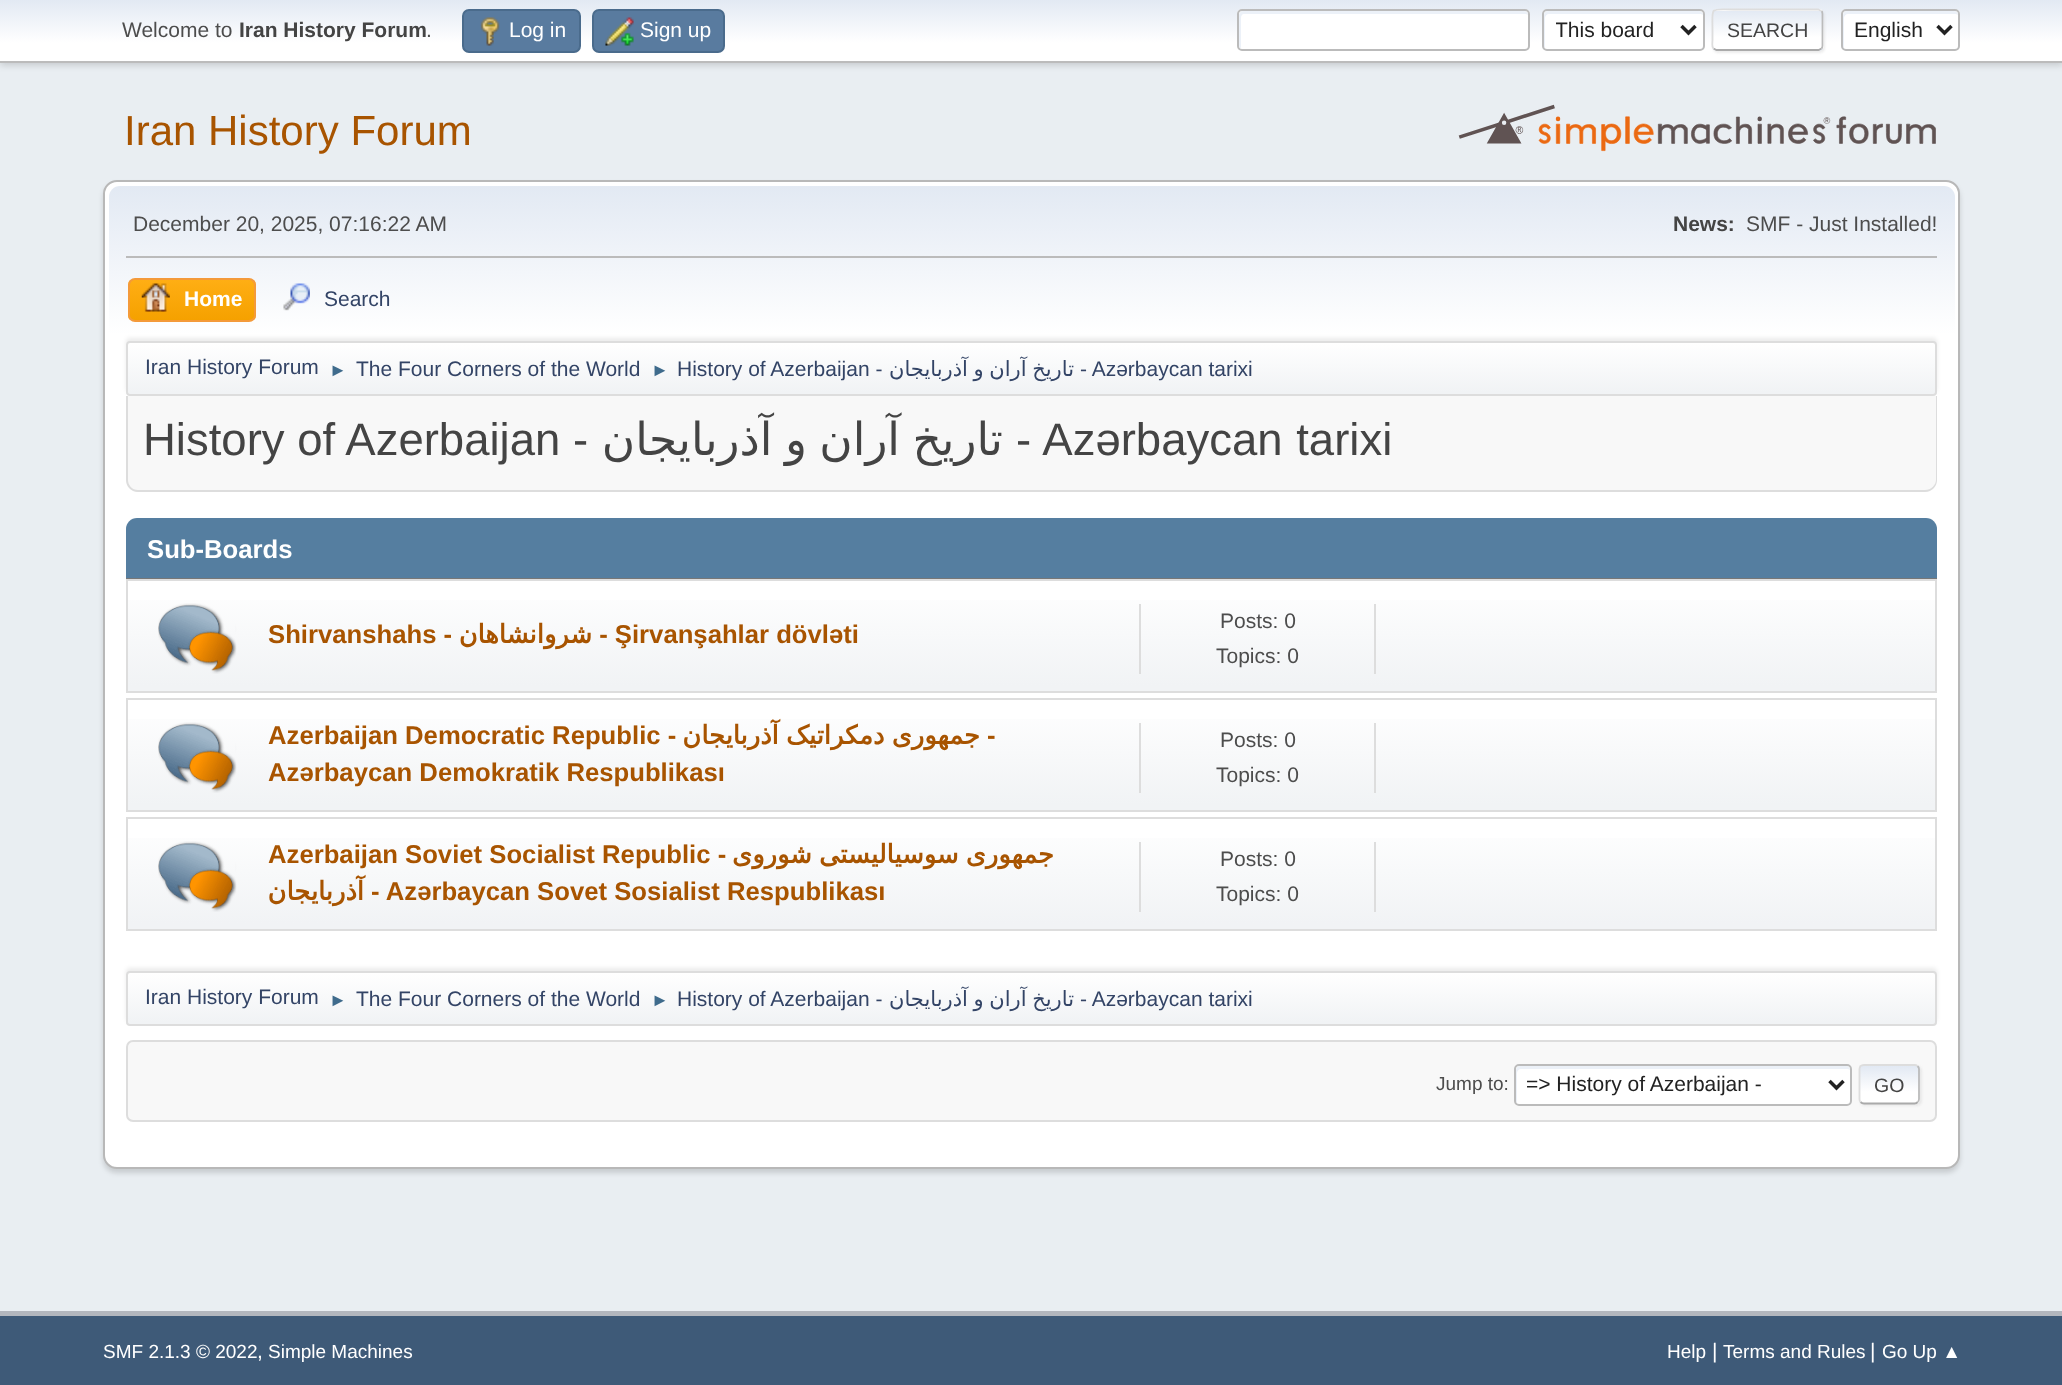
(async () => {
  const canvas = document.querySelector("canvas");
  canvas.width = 2062;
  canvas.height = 1385;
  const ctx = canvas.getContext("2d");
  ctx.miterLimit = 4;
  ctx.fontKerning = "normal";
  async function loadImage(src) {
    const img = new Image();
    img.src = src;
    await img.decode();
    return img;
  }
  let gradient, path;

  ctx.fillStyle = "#e9eef2";
  ctx.fillRect(0, 0, 2062, 1385);
  ctx.fillStyle = "rgba(0, 0, 0, 0.16)";
  ctx.filter = "blur(3.5px)";
  ctx.beginPath();
  ctx.rect(0, 2, 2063, 63);
  ctx.fill();
  ctx.filter = "none";
  gradient = ctx.createLinearGradient(1032, 0, 1032, 61);
  gradient.addColorStop(0, "#e2e9f3");
  gradient.addColorStop(0.7, "#ffffff");
  ctx.fillStyle = gradient;
  ctx.fillRect(0, 0, 2062, 61);
  ctx.fillStyle = "#bbbbbb";
  ctx.fillRect(0, 61, 2062, 2);
  ctx.fillStyle = "#597b9f";
  ctx.beginPath();
  ctx.roundRect(463, 10, 117, 42, 6);
  ctx.fill();
  ctx.strokeStyle = "#4a6b8c";
  ctx.lineWidth = 2;
  ctx.stroke();
  ctx.drawImage(await loadImage("img/1.png"), 480, 17, 20, 29);
  ctx.beginPath();
  ctx.roundRect(593, 10, 131, 42, 6);
  ctx.fill();
  ctx.stroke();
  ctx.drawImage(await loadImage("img/2.png"), 605, 17, 29, 29);
  ctx.fillStyle = "#ffffff";
  ctx.beginPath();
  ctx.roundRect(1237, 9, 293, 42, 5);
  ctx.fill();
  ctx.fillStyle = "#ecf1f8";
  path = new Path2D("M1244 14H1526L1528 15C1528 13 1526 11 1524 11H1243C1241 11 1239 13 1239 15V45C1239 46 1240 48 1241 48V18C1241 16 1242 14 1244 14Z");
  ctx.fill(path);
  ctx.beginPath();
  ctx.roundRect(1238, 10, 291, 40, 4);
  ctx.strokeStyle = "#bbbbbb";
  ctx.stroke();
  ctx.fillStyle = "#ffffff";
  ctx.beginPath();
  ctx.roundRect(1542, 9, 163, 42, 5);
  ctx.fill();
  ctx.fillStyle = "#ecf1f8";
  path = new Path2D("M1549 14H1701L1703 15C1703 13 1701 11 1699 11H1548C1546 11 1544 13 1544 15V45C1544 46 1544 47 1545 48V18C1545 16 1547 14 1549 14Z");
  ctx.fill(path);
  ctx.beginPath();
  ctx.roundRect(1543, 10, 161, 40, 4);
  ctx.stroke();
  path = new Path2D("M1681.5 26L1688.5 33L1695.5 26");
  ctx.strokeStyle = "#222222";
  ctx.lineWidth = 3.5;
  ctx.stroke(path);
  ctx.fillStyle = "rgba(221, 221, 221, 0.57)";
  ctx.filter = "blur(1px)";
  ctx.beginPath();
  ctx.roundRect(1713, 11, 112, 42, 5);
  ctx.fill();
  ctx.filter = "none";
  ctx.save();
  ctx.beginPath();
  ctx.roundRect(1712, 9, 112, 42, 5);
  ctx.clip();
  gradient = ctx.createLinearGradient(1768, -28, 1768, 11);
  gradient.addColorStop(0, "#e2e9f3");
  gradient.addColorStop(0.7, "#ffffff");
  ctx.fillStyle = gradient;
  ctx.fillRect(1712, 9, 112, 2);
  gradient = ctx.createLinearGradient(1768, 10, 1768, 49);
  gradient.addColorStop(0, "#e2e9f3");
  gradient.addColorStop(0.7, "#ffffff");
  ctx.fillStyle = gradient;
  ctx.fillRect(1712, 11, 112, 38);
  gradient = ctx.createLinearGradient(1768, 49, 1768, 88);
  gradient.addColorStop(0, "#e2e9f3");
  gradient.addColorStop(0.7, "#ffffff");
  ctx.fillStyle = gradient;
  ctx.fillRect(1712, 49, 112, 2);
  ctx.restore();
  path = new Path2D("M1821.5 11C1822 11.5 1822.5 13 1822.5 14V45.5C1822.5 46.5 1822 48 1821.5 48.5");
  ctx.strokeStyle = "#bbbbbb";
  ctx.lineWidth = 1.8;
  ctx.stroke(path);
  path = new Path2D("M1821.5 48.5L1818.5 50H1716.5L1713.5 48.5");
  ctx.strokeStyle = "#aaaaaa";
  ctx.stroke(path);
  path = new Path2D("M1713.5 48.5C1711.5 46.5 1712.5 42.5 1712.5 40V30C1712.5 6 1709 9.5 1733.5 9.5H1818L1821.5 11");
  ctx.strokeStyle = "#dddddd";
  ctx.stroke(path);
  ctx.fillStyle = "#ffffff";
  ctx.beginPath();
  ctx.roundRect(1841, 9, 119, 42, 5);
  ctx.fill();
  ctx.fillStyle = "#ecf1f8";
  path = new Path2D("M1848 14H1956L1958 15C1958 13 1956 11 1954 11H1847C1845 11 1843 13 1843 15V45C1843 46 1843 47 1844 48V18C1844 16 1846 14 1848 14Z");
  ctx.fill(path);
  ctx.beginPath();
  ctx.roundRect(1842, 10, 117, 40, 4);
  ctx.strokeStyle = "#bbbbbb";
  ctx.lineWidth = 2;
  ctx.stroke();
  path = new Path2D("M1937.5 26L1944.5 33L1951.5 26");
  ctx.strokeStyle = "#222222";
  ctx.lineWidth = 3.5;
  ctx.stroke(path);
  ctx.drawImage(await loadImage("img/3.png"), 1458, 104, 478, 48);
  ctx.fillStyle = "rgba(0, 0, 0, 0.14)";
  ctx.filter = "blur(2.5px)";
  ctx.beginPath();
  ctx.roundRect(103, 184, 1857, 989, 14);
  ctx.fill();
  ctx.filter = "none";
  ctx.fillStyle = "#ffffff";
  ctx.beginPath();
  ctx.roundRect(104, 181, 1855, 987, 13);
  ctx.fill();
  ctx.strokeStyle = "#b8b8b8";
  ctx.lineWidth = 2;
  ctx.stroke();
  gradient = ctx.createLinearGradient(1032, 185, 1032, 399);
  gradient.addColorStop(0, "#e2e9f3");
  gradient.addColorStop(0.7, "#ffffff");
  ctx.fillStyle = gradient;
  ctx.beginPath();
  ctx.roundRect(109, 186, 1846, 213, [11, 11, 0, 0]);
  ctx.fill();
  ctx.fillStyle = "#bbbbbb";
  ctx.fillRect(126, 256, 1811, 2);
  ctx.save();
  ctx.beginPath();
  ctx.roundRect(128, 278, 128, 44, 7);
  ctx.clip();
  gradient = ctx.createLinearGradient(192, 280, 192, 320);
  gradient.addColorStop(0, "#ffae14");
  gradient.addColorStop(1, "#f5a100");
  ctx.fillStyle = gradient;
  ctx.fillRect(128, 280, 128, 40);
  ctx.restore();
  ctx.beginPath();
  ctx.roundRect(129, 279, 126, 42, 6);
  ctx.strokeStyle = "#f49a3a";
  ctx.stroke();
  ctx.drawImage(await loadImage("img/4.png"), 141, 283, 29, 29);
  ctx.drawImage(await loadImage("img/5.png"), 283, 283, 27, 28);
  ctx.fillStyle = "rgba(0, 0, 0, 0.08)";
  ctx.filter = "blur(2px)";
  ctx.beginPath();
  ctx.roundRect(126, 338, 1811, 54, 4);
  ctx.fill();
  ctx.filter = "none";
  ctx.save();
  ctx.beginPath();
  ctx.roundRect(126, 341, 1811, 55, 4);
  ctx.clip();
  gradient = ctx.createLinearGradient(1032, 343, 1032, 394);
  gradient.addColorStop(0, "#ffffff");
  gradient.addColorStop(0.95, "#f1f3f5");
  ctx.fillStyle = gradient;
  ctx.fillRect(126, 343, 1811, 51);
  ctx.restore();
  ctx.beginPath();
  ctx.roundRect(127, 342, 1809, 53, 3);
  ctx.strokeStyle = "#dddddd";
  ctx.stroke();
  ctx.fillStyle = "#f8f8f8";
  ctx.beginPath();
  ctx.roundRect(126, 396, 1811, 96, [0, 0, 12, 12]);
  ctx.fill();
  ctx.fillStyle = "#dddddd";
  path = new Path2D("M126 396H1937V480C1937 486 1932 492 1925 492H138C131 492 126 486 126 480ZM128 396H1936V480C1936 485 1931 490 1925 490H138C132 490 128 485 128 480Z");
  ctx.fill(path, "evenodd");
  ctx.fillStyle = "#557ea0";
  ctx.beginPath();
  ctx.roundRect(126, 518, 1811, 61, [11, 11, 0, 0]);
  ctx.fill();
  ctx.fillStyle = "#777777";
  ctx.fillRect(126, 578, 1811, 1);
  gradient = ctx.createLinearGradient(1032, 581, 1032, 691);
  gradient.addColorStop(0, "#ffffff");
  gradient.addColorStop(0.95, "#f1f3f5");
  ctx.fillStyle = gradient;
  ctx.fillRect(128, 600, 1807, 91);
  ctx.strokeRect(127, 580, 1809, 112);
  ctx.drawImage(await loadImage("img/6.png"), 158, 603, 79, 71);
  ctx.fillStyle = "#dddddd";
  ctx.fillRect(1374, 604, 2, 70);
  ctx.fillRect(1139, 604, 2, 70);
  gradient = ctx.createLinearGradient(1032, 700, 1032, 810);
  gradient.addColorStop(0, "#ffffff");
  gradient.addColorStop(0.95, "#f1f3f5");
  ctx.fillStyle = gradient;
  ctx.fillRect(128, 719, 1807, 91);
  ctx.strokeRect(127, 699, 1809, 112);
  ctx.drawImage(await loadImage("img/6.png"), 158, 722, 79, 71);
  ctx.fillStyle = "#dddddd";
  ctx.fillRect(1374, 723, 2, 70);
  ctx.fillRect(1139, 723, 2, 70);
  gradient = ctx.createLinearGradient(1032, 819, 1032, 929);
  gradient.addColorStop(0, "#ffffff");
  gradient.addColorStop(0.95, "#f1f3f5");
  ctx.fillStyle = gradient;
  ctx.fillRect(128, 838, 1807, 91);
  ctx.strokeRect(127, 818, 1809, 112);
  ctx.drawImage(await loadImage("img/6.png"), 158, 841, 79, 71);
  ctx.fillStyle = "#dddddd";
  ctx.fillRect(1374, 842, 2, 70);
  ctx.fillRect(1139, 842, 2, 70);
  ctx.fillStyle = "rgba(0, 0, 0, 0.08)";
  ctx.filter = "blur(2px)";
  ctx.beginPath();
  ctx.roundRect(126, 968, 1811, 54, 4);
  ctx.fill();
  ctx.filter = "none";
  ctx.save();
  ctx.beginPath();
  ctx.roundRect(126, 971, 1811, 55, 4);
  ctx.clip();
  gradient = ctx.createLinearGradient(1032, 973, 1032, 1024);
  gradient.addColorStop(0, "#ffffff");
  gradient.addColorStop(0.95, "#f1f3f5");
  ctx.fillStyle = gradient;
  ctx.fillRect(126, 973, 1811, 51);
  ctx.restore();
  ctx.beginPath();
  ctx.roundRect(127, 972, 1809, 53, 3);
  ctx.stroke();
  ctx.fillStyle = "#f8f8f8";
  ctx.beginPath();
  ctx.roundRect(127, 1041, 1809, 80, 6);
  ctx.fill();
  ctx.stroke();
  ctx.fillStyle = "#ffffff";
  ctx.beginPath();
  ctx.roundRect(1514, 1064, 338, 42, 5);
  ctx.fill();
  ctx.fillStyle = "#ecf1f8";
  path = new Path2D("M1521 1069H1848L1850 1070C1850 1068 1848 1066 1846 1066H1520C1518 1066 1516 1068 1516 1070V1100C1516 1101 1516 1102 1517 1103V1073C1517 1071 1519 1069 1521 1069Z");
  ctx.fill(path);
  ctx.beginPath();
  ctx.roundRect(1515, 1065, 336, 40, 4);
  ctx.strokeStyle = "#bbbbbb";
  ctx.stroke();
  path = new Path2D("M1829.5 1081L1836.5 1088L1843.5 1081");
  ctx.strokeStyle = "#222222";
  ctx.lineWidth = 3.5;
  ctx.stroke(path);
  ctx.fillStyle = "rgba(221, 221, 221, 0.57)";
  ctx.filter = "blur(1px)";
  ctx.beginPath();
  ctx.roundRect(1860, 1066, 62, 40, 5);
  ctx.fill();
  ctx.filter = "none";
  ctx.save();
  ctx.beginPath();
  ctx.roundRect(1859, 1064, 61, 40, 5);
  ctx.clip();
  gradient = ctx.createLinearGradient(1889, 1029, 1889, 1066);
  gradient.addColorStop(0, "#e2e9f3");
  gradient.addColorStop(0.7, "#ffffff");
  ctx.fillStyle = gradient;
  ctx.fillRect(1859, 1064, 61, 2);
  gradient = ctx.createLinearGradient(1889, 1066, 1889, 1103);
  gradient.addColorStop(0, "#e2e9f3");
  gradient.addColorStop(0.7, "#ffffff");
  ctx.fillStyle = gradient;
  ctx.fillRect(1859, 1066, 61, 37);
  ctx.restore();
  path = new Path2D("M1917.5 1066C1918.5 1067 1919 1068 1919 1069V1099C1919 1100 1918.5 1101.5 1917.5 1102");
  ctx.strokeStyle = "#bbbbbb";
  ctx.lineWidth = 1.8;
  ctx.stroke(path);
  path = new Path2D("M1917.5 1102C1917 1103 1915.5 1103.5 1914.5 1103.5H1864C1862.5 1103.5 1861.5 1103 1860.5 1102");
  ctx.strokeStyle = "#aaaaaa";
  ctx.stroke(path);
  path = new Path2D("M1860.5 1102C1860 1101.5 1859.5 1100 1859.5 1099V1069C1859.5 1068 1860 1067 1860.5 1066C1861.5 1065.5 1862.5 1065 1864 1065H1914.5C1915.5 1065 1917 1065.5 1917.5 1066");
  ctx.strokeStyle = "#dddddd";
  ctx.stroke(path);
  ctx.fillStyle = "#3e5a78";
  ctx.fillRect(0, 1316, 2062, 69);
  ctx.fillStyle = "#b2b6bd";
  ctx.fillRect(0, 1311, 2062, 5);
  ctx.font = "21px Liberation Sans";
  ctx.fillStyle = "#4d4d4d";
  ctx.fillText("Welcome to", 122, 37);
  ctx.font = "bold 21px Liberation Sans";
  ctx.fillStyle = "#444444";
  ctx.fillText("Iran History Forum", 239, 37);
  ctx.font = "21px Liberation Sans";
  ctx.fillStyle = "#4d4d4d";
  ctx.fillText(".", 426, 37);
  ctx.fillStyle = "#ffffff";
  ctx.fillText("Log in", 509, 37);
  ctx.fillText("Sign up", 640, 37);
  ctx.save();
  ctx.beginPath();
  ctx.rect(1556, 16, 115, 28);
  ctx.clip();
  ctx.fillStyle = "#222222";
  ctx.fillText("This board", 1555, 37);
  ctx.restore();
  ctx.font = "19.5px Liberation Sans";
  ctx.fillStyle = "#444444";
  ctx.fillText("SEARCH", 1727, 37);
  ctx.font = "21px Liberation Sans";
  ctx.fillStyle = "#222222";
  ctx.fillText("English", 1854, 37);
  ctx.font = "42px Liberation Sans";
  ctx.fillStyle = "#a85400";
  ctx.fillText("Iran History Forum", 124, 145);
  ctx.font = "21px Liberation Sans";
  ctx.fillStyle = "#4d4d4d";
  ctx.fillText("December 20, 2025, 07:16:22 AM", 133, 231);
  ctx.font = "bold 21px Liberation Sans";
  ctx.fillStyle = "#444444";
  ctx.fillText("News:", 1673, 231);
  ctx.font = "21px Liberation Sans";
  ctx.fillStyle = "#4d4d4d";
  ctx.fillText("SMF - Just Installed!", 1746, 231);
  ctx.font = "bold 21px Liberation Sans";
  ctx.fillStyle = "#ffffff";
  ctx.fillText("Home", 184, 306);
  ctx.font = "21px Liberation Sans";
  ctx.fillStyle = "#334466";
  ctx.fillText("Search", 324, 306);
  ctx.fillText("Iran History Forum", 145, 374);
  ctx.font = "18px Liberation Sans";
  ctx.fillStyle = "#3f6b8c";
  ctx.fillText("►", 329, 376);
  ctx.font = "21px Liberation Sans";
  ctx.fillStyle = "#334466";
  ctx.fillText("The Four Corners of the World", 356, 376);
  ctx.font = "18px Liberation Sans";
  ctx.fillStyle = "#3f6b8c";
  ctx.fillText("►", 651, 376);
  ctx.font = "21px Liberation Sans";
  ctx.fillStyle = "#334466";
  ctx.fillText("History of Azerbaijan -", 677, 376);
  ctx.wordSpacing = "-1px";
  ctx.direction = "rtl";
  ctx.font = "21px DejaVu Sans";
  ctx.fillText("تاریخ آران و آذربایجان", 1074, 376);
  ctx.wordSpacing = "0px";
  ctx.direction = "ltr";
  ctx.font = "21px Liberation Sans";
  ctx.fillText("- Azərbaycan tarixi", 1080, 376);
  ctx.font = "45.5px Liberation Sans";
  ctx.fillStyle = "#444444";
  ctx.fillText("History of Azerbaijan -", 143, 455);
  ctx.wordSpacing = "-2px";
  ctx.direction = "rtl";
  ctx.font = "45.5px DejaVu Sans";
  ctx.fillText("تاریخ آران و آذربایجان", 1003, 455);
  ctx.wordSpacing = "1px";
  ctx.direction = "ltr";
  ctx.font = "45.5px Liberation Sans";
  ctx.fillText("- Azərbaycan tarixi", 1016, 455);
  ctx.wordSpacing = "0px";
  ctx.font = "bold 25.7px Liberation Sans";
  ctx.fillStyle = "#ffffff";
  ctx.fillText("Sub-Boards", 147, 558);
  ctx.fillStyle = "#a85400";
  ctx.fillText("Shirvanshahs -", 268, 643);
  ctx.direction = "rtl";
  ctx.font = "bold 25.7px DejaVu Sans";
  ctx.fillText("شروانشاهان", 592, 643);
  ctx.direction = "ltr";
  ctx.font = "bold 25.7px Liberation Sans";
  ctx.fillText(" - Şirvanşahlar dövləti", 592, 643);
  ctx.font = "21px Liberation Sans";
  ctx.fillStyle = "#4d4d4d";
  ctx.fillText("Posts: 0", 1220, 628);
  ctx.fillText("Topics: 0", 1216, 663);
  ctx.font = "bold 25.7px Liberation Sans";
  ctx.fillStyle = "#a85400";
  ctx.fillText("Azerbaijan Democratic Republic -", 268, 744);
  ctx.wordSpacing = "-1px";
  ctx.direction = "rtl";
  ctx.font = "bold 25.7px DejaVu Sans";
  ctx.fillText("جمهوری دمکراتیک آذربایجان", 980, 744);
  ctx.wordSpacing = "0px";
  ctx.direction = "ltr";
  ctx.font = "bold 25.7px Liberation Sans";
  ctx.fillText("-", 987, 744);
  ctx.fillText("Azərbaycan Demokratik Respublikası", 268, 781);
  ctx.font = "21px Liberation Sans";
  ctx.fillStyle = "#4d4d4d";
  ctx.fillText("Posts: 0", 1220, 747);
  ctx.fillText("Topics: 0", 1216, 782);
  ctx.font = "bold 25.7px Liberation Sans";
  ctx.fillStyle = "#a85400";
  ctx.fillText("Azerbaijan Soviet Socialist Republic -", 268, 863);
  ctx.wordSpacing = "-1px";
  ctx.direction = "rtl";
  ctx.font = "bold 25.7px DejaVu Sans";
  ctx.fillText("جمهوری سوسیالیستی شوروی", 1054, 863);
  ctx.wordSpacing = "0px";
  ctx.fillText("آذربایجان", 364, 900);
  ctx.direction = "ltr";
  ctx.font = "bold 25.7px Liberation Sans";
  ctx.fillText("- Azərbaycan Sovet Sosialist Respublikası", 371, 900);
  ctx.font = "21px Liberation Sans";
  ctx.fillStyle = "#4d4d4d";
  ctx.fillText("Posts: 0", 1220, 866);
  ctx.fillText("Topics: 0", 1216, 901);
  ctx.fillStyle = "#334466";
  ctx.fillText("Iran History Forum", 145, 1004);
  ctx.font = "18px Liberation Sans";
  ctx.fillStyle = "#3f6b8c";
  ctx.fillText("►", 329, 1006);
  ctx.font = "21px Liberation Sans";
  ctx.fillStyle = "#334466";
  ctx.fillText("The Four Corners of the World", 356, 1006);
  ctx.font = "18px Liberation Sans";
  ctx.fillStyle = "#3f6b8c";
  ctx.fillText("►", 651, 1006);
  ctx.font = "21px Liberation Sans";
  ctx.fillStyle = "#334466";
  ctx.fillText("History of Azerbaijan -", 677, 1006);
  ctx.wordSpacing = "-1px";
  ctx.direction = "rtl";
  ctx.font = "21px DejaVu Sans";
  ctx.fillText("تاریخ آران و آذربایجان", 1074, 1006);
  ctx.wordSpacing = "0px";
  ctx.direction = "ltr";
  ctx.font = "21px Liberation Sans";
  ctx.fillText("- Azərbaycan tarixi", 1080, 1006);
  ctx.font = "19px Liberation Sans";
  ctx.fillStyle = "#4d4d4d";
  ctx.fillText("Jump to:", 1436, 1090);
  ctx.font = "21px Liberation Sans";
  ctx.fillStyle = "#222222";
  ctx.fillText("=> History of Azerbaijan -", 1526, 1091);
  ctx.font = "19.5px Liberation Sans";
  ctx.fillStyle = "#444444";
  ctx.fillText("GO", 1874, 1092);
  ctx.font = "19px Liberation Sans";
  ctx.fillStyle = "#ffffff";
  ctx.fillText("SMF 2.1.3 © 2022", 103, 1358);
  ctx.font = "21px Liberation Sans";
  ctx.fillText(",", 257, 1358);
  ctx.font = "19px Liberation Sans";
  ctx.fillText("Simple Machines", 268, 1358);
  ctx.fillText("Help", 1667, 1358);
  ctx.font = "21px Liberation Sans";
  ctx.fillText("|", 1712, 1358);
  ctx.font = "19px Liberation Sans";
  ctx.fillText("Terms and Rules", 1723, 1358);
  ctx.font = "21px Liberation Sans";
  ctx.fillText("|", 1870, 1358);
  ctx.font = "19px Liberation Sans";
  ctx.fillText("Go Up ▲", 1882, 1358);
})();
